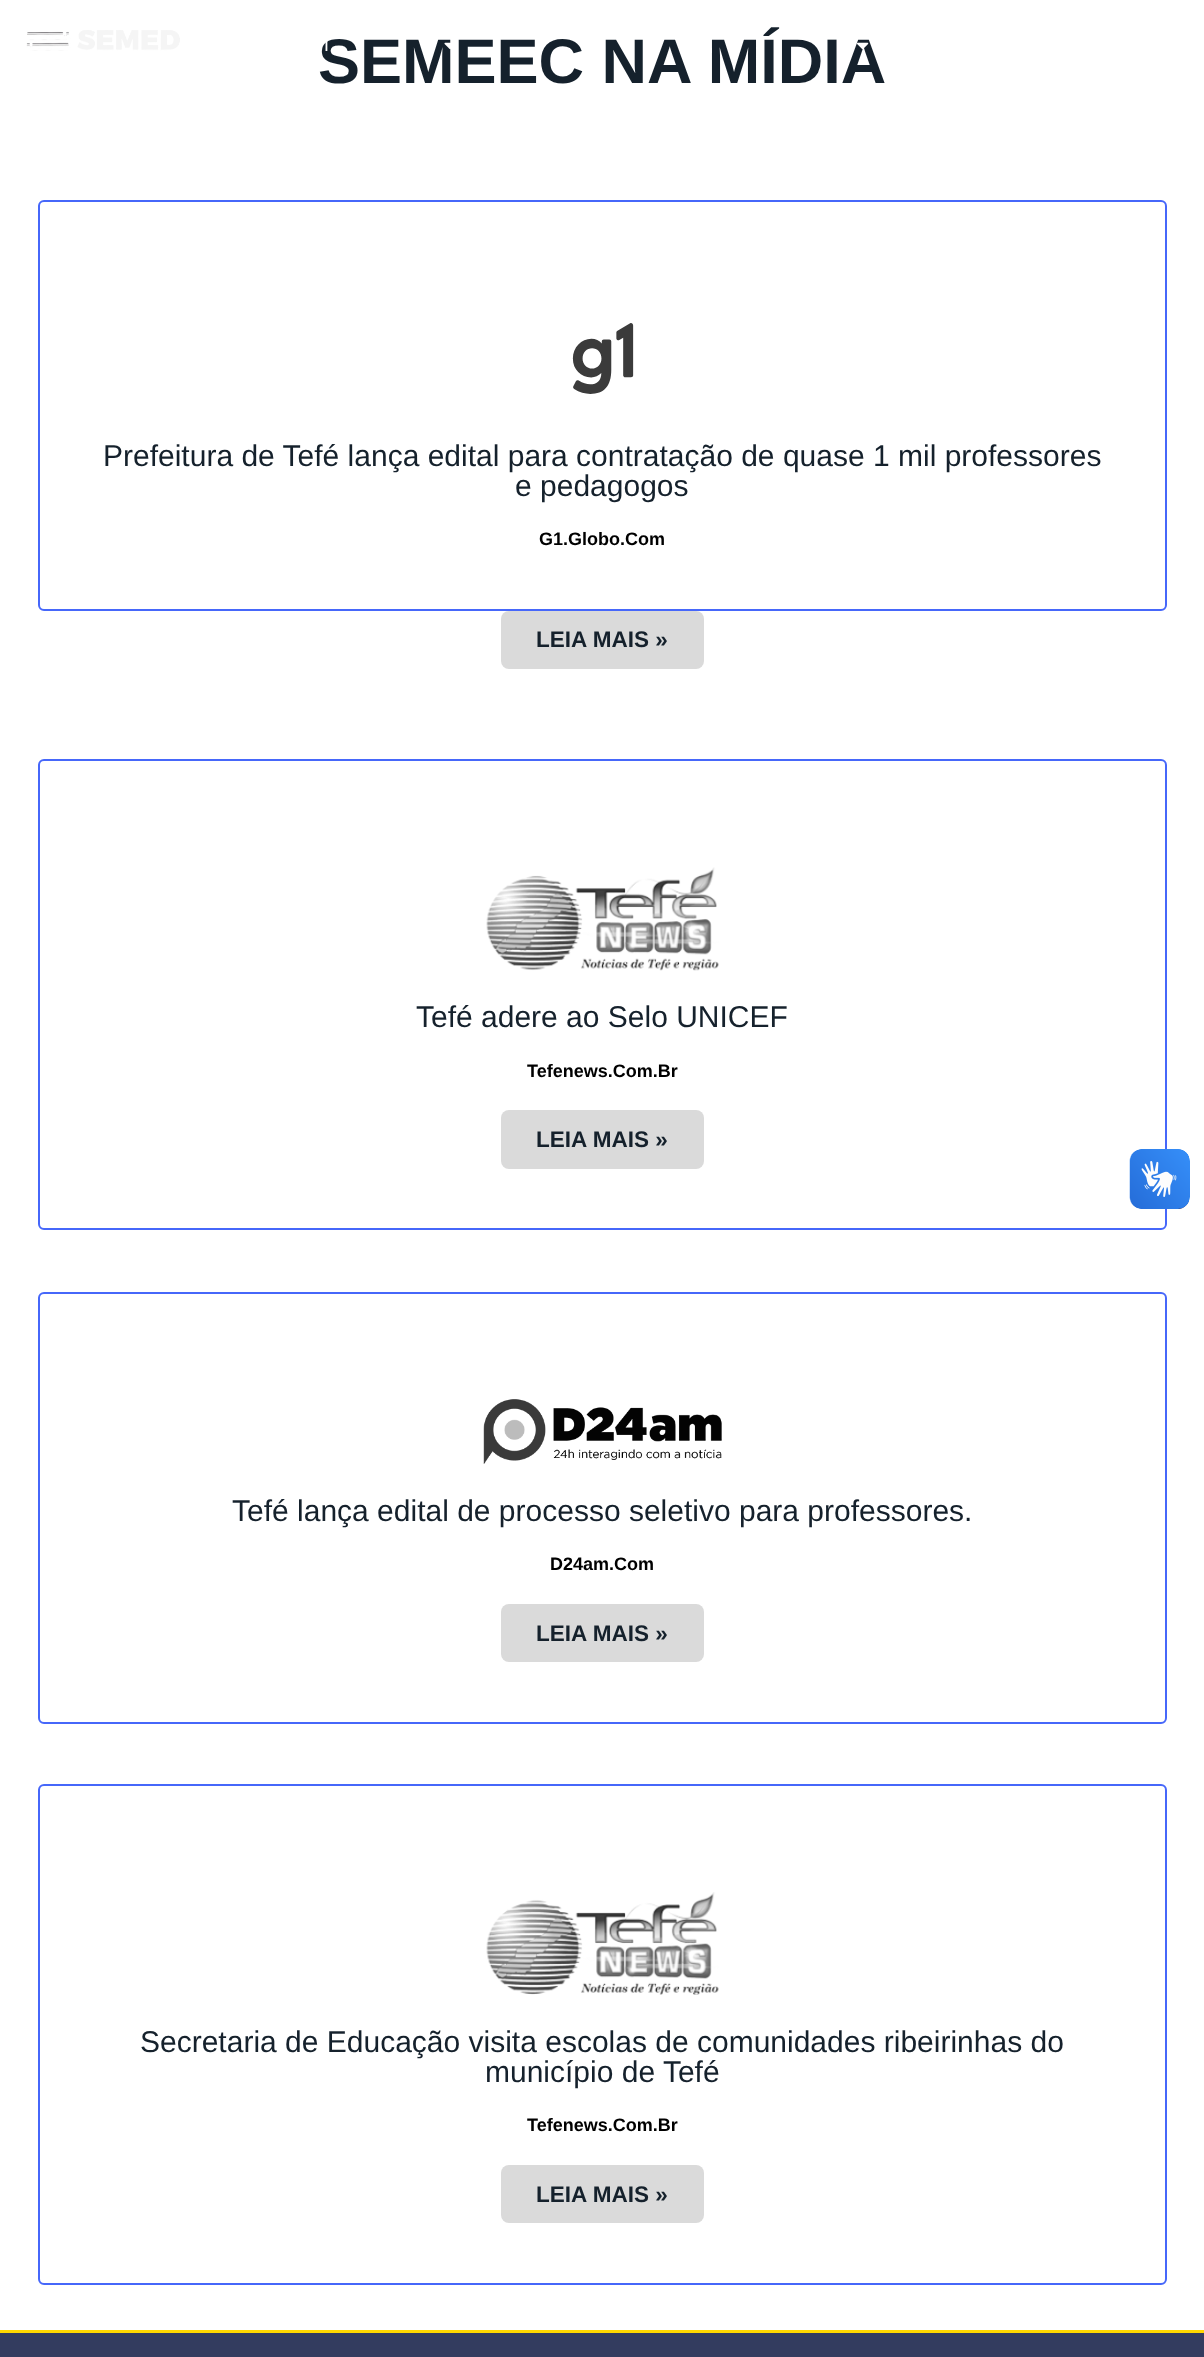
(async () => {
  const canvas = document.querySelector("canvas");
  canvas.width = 1204;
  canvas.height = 2357;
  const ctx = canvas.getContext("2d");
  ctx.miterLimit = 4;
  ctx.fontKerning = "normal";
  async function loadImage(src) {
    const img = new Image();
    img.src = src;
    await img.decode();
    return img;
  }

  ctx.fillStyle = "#ffffff";
  ctx.fillRect(0, 0, 1204, 2357);
  ctx.beginPath();
  ctx.roundRect(39, 201, 1127, 409, 5);
  ctx.strokeStyle = "#4667fa";
  ctx.lineWidth = 2;
  ctx.stroke();
  ctx.drawImage(await loadImage("img/1.png"), 572, 323, 62, 71);
  ctx.fillStyle = "#dadada";
  ctx.beginPath();
  ctx.roundRect(501, 611, 203, 58, 8);
  ctx.fill();
  ctx.beginPath();
  ctx.roundRect(39, 760, 1127, 469, 5);
  ctx.stroke();
  ctx.drawImage(await loadImage("img/2.png"), 486, 867, 233, 104);
  ctx.beginPath();
  ctx.roundRect(501, 1110, 203, 59, 8);
  ctx.fill();
  ctx.beginPath();
  ctx.roundRect(39, 1293, 1127, 430, 5);
  ctx.stroke();
  ctx.drawImage(await loadImage("img/3.png"), 483, 1399, 239, 65);
  ctx.beginPath();
  ctx.roundRect(501, 1604, 203, 58, 8);
  ctx.fill();
  ctx.beginPath();
  ctx.roundRect(39, 1785, 1127, 499, 5);
  ctx.stroke();
  ctx.drawImage(await loadImage("img/4.png"), 486, 1892, 233, 103);
  ctx.beginPath();
  ctx.roundRect(501, 2165, 203, 58, 8);
  ctx.fill();
  ctx.drawImage(await loadImage("img/5.png"), 26, 30, 154, 21);
  ctx.drawImage(await loadImage("img/8.png"), 1129, 1149, 61, 60);
  ctx.drawImage(await loadImage("img/9.png"), 1130, 1149, 60, 60);
  ctx.fillStyle = "#333c5f";
  ctx.fillRect(0, 2333, 1204, 24);
  ctx.fillStyle = "#ffd700";
  ctx.fillRect(0, 2330, 1204, 3);
  ctx.font = "bold 63px Liberation Sans";
  ctx.fillStyle = "#15212c";
  ctx.fillText("SEMEEC NA MÍDIA", 318, 83);
  ctx.font = "30px Liberation Sans";
  ctx.fillText("Prefeitura de Tefé lança edital para contratação de quase 1 mil professores", 103, 466);
  ctx.fillText("e pedagogos", 515, 496);
  ctx.font = "bold 18px Liberation Sans";
  ctx.fillStyle = "#000000";
  ctx.fillText("G1.Globo.Com", 539, 545);
  ctx.font = "bold 22.5px Liberation Sans";
  ctx.fillStyle = "#15212c";
  ctx.fillText("LEIA MAIS »", 536, 647);
  ctx.font = "30px Liberation Sans";
  ctx.fillText("Tefé adere ao Selo UNICEF", 416, 1027);
  ctx.font = "bold 18px Liberation Sans";
  ctx.fillStyle = "#000000";
  ctx.fillText("Tefenews.Com.Br", 527, 1077);
  ctx.font = "bold 22.5px Liberation Sans";
  ctx.fillStyle = "#15212c";
  ctx.fillText("LEIA MAIS »", 536, 1147);
  ctx.font = "30px Liberation Sans";
  ctx.fillText("Tefé lança edital de processo seletivo para professores.", 232, 1521);
  ctx.font = "bold 18px Liberation Sans";
  ctx.fillStyle = "#000000";
  ctx.fillText("D24am.Com", 550, 1570);
  ctx.font = "bold 22.5px Liberation Sans";
  ctx.fillStyle = "#15212c";
  ctx.fillText("LEIA MAIS »", 536, 1641);
  ctx.font = "30px Liberation Sans";
  ctx.fillText("Secretaria de Educação visita escolas de comunidades ribeirinhas do", 140, 2052);
  ctx.fillText("município de Tefé", 485, 2082);
  ctx.font = "bold 18px Liberation Sans";
  ctx.fillStyle = "#000000";
  ctx.fillText("Tefenews.Com.Br", 527, 2131);
  ctx.font = "bold 22.5px Liberation Sans";
  ctx.fillStyle = "#15212c";
  ctx.fillText("LEIA MAIS »", 536, 2202);
  ctx.font = "20px Jost";
  ctx.fillStyle = "#ffffff";
  ctx.fillText("I", 324, 51);
  ctx.drawImage(await loadImage("img/6.png"), 444, 42, 7, 8);
  ctx.drawImage(await loadImage("img/7.png"), 857, 42, 12, 8);
})();
